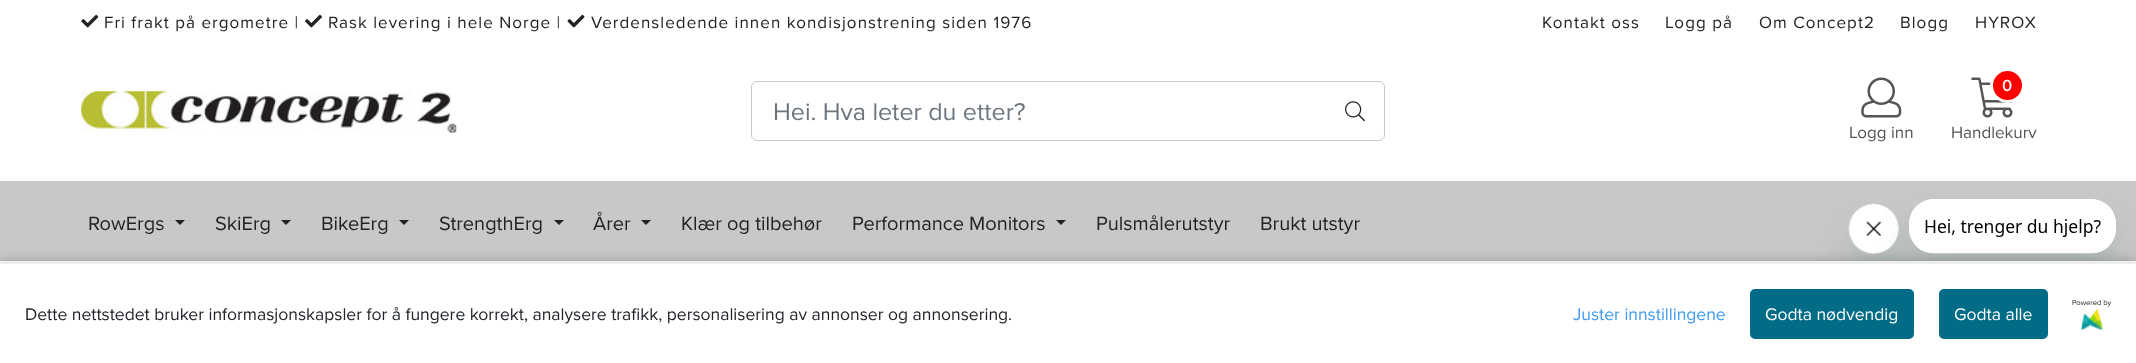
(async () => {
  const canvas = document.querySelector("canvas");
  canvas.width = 2136;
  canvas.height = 363;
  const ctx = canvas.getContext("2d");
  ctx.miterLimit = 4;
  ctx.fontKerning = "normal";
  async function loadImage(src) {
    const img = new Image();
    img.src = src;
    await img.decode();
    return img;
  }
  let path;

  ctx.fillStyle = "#ffffff";
  ctx.fillRect(0, 0, 2136, 363);
  ctx.drawImage(await loadImage("img/1.png"), 81, 14, 18, 14);
  ctx.drawImage(await loadImage("img/2.png"), 305, 14, 17, 14);
  ctx.drawImage(await loadImage("img/3.png"), 567, 14, 18, 14);
  ctx.drawImage(await loadImage("img/4.png"), 81, 91, 376, 42);
  ctx.beginPath();
  ctx.roundRect(751.5, 81.5, 633, 59, 5.5);
  ctx.strokeStyle = "#cacaca";
  ctx.stroke();
  ctx.drawImage(await loadImage("img/5.png"), 1345, 101, 20, 21);
  ctx.drawImage(await loadImage("img/6.png"), 1861, 77, 41, 41);
  ctx.drawImage(await loadImage("img/7.png"), 1971, 77, 42, 41);
  ctx.fillStyle = "#ff0000";
  ctx.beginPath();
  ctx.arc(2007.5, 85.5, 16, 0, Math.PI * 2);
  ctx.fill();
  ctx.strokeStyle = "#ffffff";
  ctx.lineWidth = 3;
  ctx.stroke();
  ctx.fillStyle = "#c8c9c7";
  ctx.fillRect(0, 181, 2136, 80);
  ctx.fillStyle = "#fbfbfb";
  ctx.fillRect(0, 180, 2136, 1);
  ctx.fillStyle = "#232323";
  path = new Path2D("M175 220H185L180 225Z");
  ctx.fill(path);
  path = new Path2D("M281 220H291L286 225Z");
  ctx.fill(path);
  path = new Path2D("M399 220H409L404 225Z");
  ctx.fill(path);
  path = new Path2D("M554 220H564L559 225Z");
  ctx.fill(path);
  path = new Path2D("M641 220H651L646 225Z");
  ctx.fill(path);
  path = new Path2D("M1056 220H1066L1061 225Z");
  ctx.fill(path);
  ctx.fillStyle = "rgba(23, 73, 77, 0.15)";
  ctx.filter = "blur(19px)";
  ctx.beginPath();
  ctx.roundRect(1849, 229, 50, 50, 25);
  ctx.fill();
  ctx.filter = "none";
  ctx.drawImage(await loadImage("img/10.png"), 1848, 203, 51, 51);
  ctx.filter = "blur(19px)";
  ctx.beginPath();
  ctx.roundRect(1909, 224, 207, 55, 25);
  ctx.fill();
  ctx.filter = "none";
  ctx.drawImage(await loadImage("img/9.png"), 1909, 199, 207, 55);
  ctx.fillStyle = "rgba(0, 0, 0, 0.25)";
  ctx.filter = "blur(6px)";
  ctx.beginPath();
  ctx.rect(0, 261, 2136, 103);
  ctx.fill();
  ctx.filter = "none";
  ctx.fillStyle = "#ffffff";
  ctx.fillRect(0, 264, 2136, 99);
  ctx.fillStyle = "#eeeeee";
  ctx.fillRect(0, 261, 2136, 3);
  ctx.drawImage(await loadImage("img/8.png"), 2081, 308, 22, 23);
  ctx.fillStyle = "#026b85";
  ctx.beginPath();
  ctx.roundRect(1750, 289, 164, 50, 5);
  ctx.fill();
  ctx.beginPath();
  ctx.roundRect(1939, 289, 109, 50, 5);
  ctx.fill();
  ctx.letterSpacing = "1.05px";
  ctx.font = "17px Proxima Nova";
  ctx.fillStyle = "#232323";
  for (const [text, x, y] of [
    ["Fri frakt på ergometre |", 104, 28],
    ["Rask levering i hele Norge |", 328, 28],
    ["Verdensledende innen kondisjonstrening siden 1976", 591, 28],
    ["Kontakt oss", 1542, 28],
    ["Logg på", 1665, 28],
    ["Om Concept2", 1759, 28],
    ["Blogg", 1900, 28],
    ["HYROX", 1975, 28],
  ]) {
    ctx.fillText(text, x, y);
  }
  ctx.letterSpacing = "0px";
  ctx.font = "25px Proxima Nova";
  ctx.fillStyle = "#6c757d";
  ctx.fillText("Hei. Hva leter du etter?", 773, 120);
  ctx.font = "17px Proxima Nova";
  ctx.fillStyle = "#555555";
  ctx.fillText("Logg inn", 1849, 138);
  ctx.font = "bold 16px Proxima Nova";
  ctx.fillStyle = "#ffffff";
  ctx.fillText("0", 2002, 91);
  ctx.font = "17px Proxima Nova";
  ctx.fillStyle = "#555555";
  ctx.fillText("Handlekurv", 1951, 138);
  ctx.font = "20px Proxima Nova";
  ctx.fillStyle = "#232323";
  for (const [text, x, y] of [
    ["RowErgs", 88, 230],
    ["SkiErg", 215, 230],
    ["BikeErg", 321, 230],
    ["StrengthErg", 439, 230],
    ["Årer", 593, 230],
    ["Klær og tilbehør", 681, 230],
    ["Performance Monitors", 852, 230],
    ["Pulsmålerutstyr", 1096, 230],
    ["Brukt utstyr", 1260, 230],
  ]) {
    ctx.fillText(text, x, y);
  }
  ctx.font = "17.5px Proxima Nova";
  ctx.fillStyle = "#212529";
  ctx.fillText("Dette nettstedet bruker informasjonskapsler for å fungere korrekt, analysere trafikk, personalisering av annonser og annonsering.", 25, 320);
  ctx.fillStyle = "#409aef";
  ctx.fillText("Juster innstillingene", 1573, 320);
  ctx.font = "7.5px Proxima Nova";
  ctx.fillStyle = "#212529";
  ctx.fillText("Powered by", 2072, 305);
  ctx.font = "17.5px Proxima Nova";
  ctx.fillStyle = "#ffffff";
  ctx.fillText("Godta nødvendig", 1765, 320);
  ctx.fillText("Godta alle", 1954, 320);
})();
